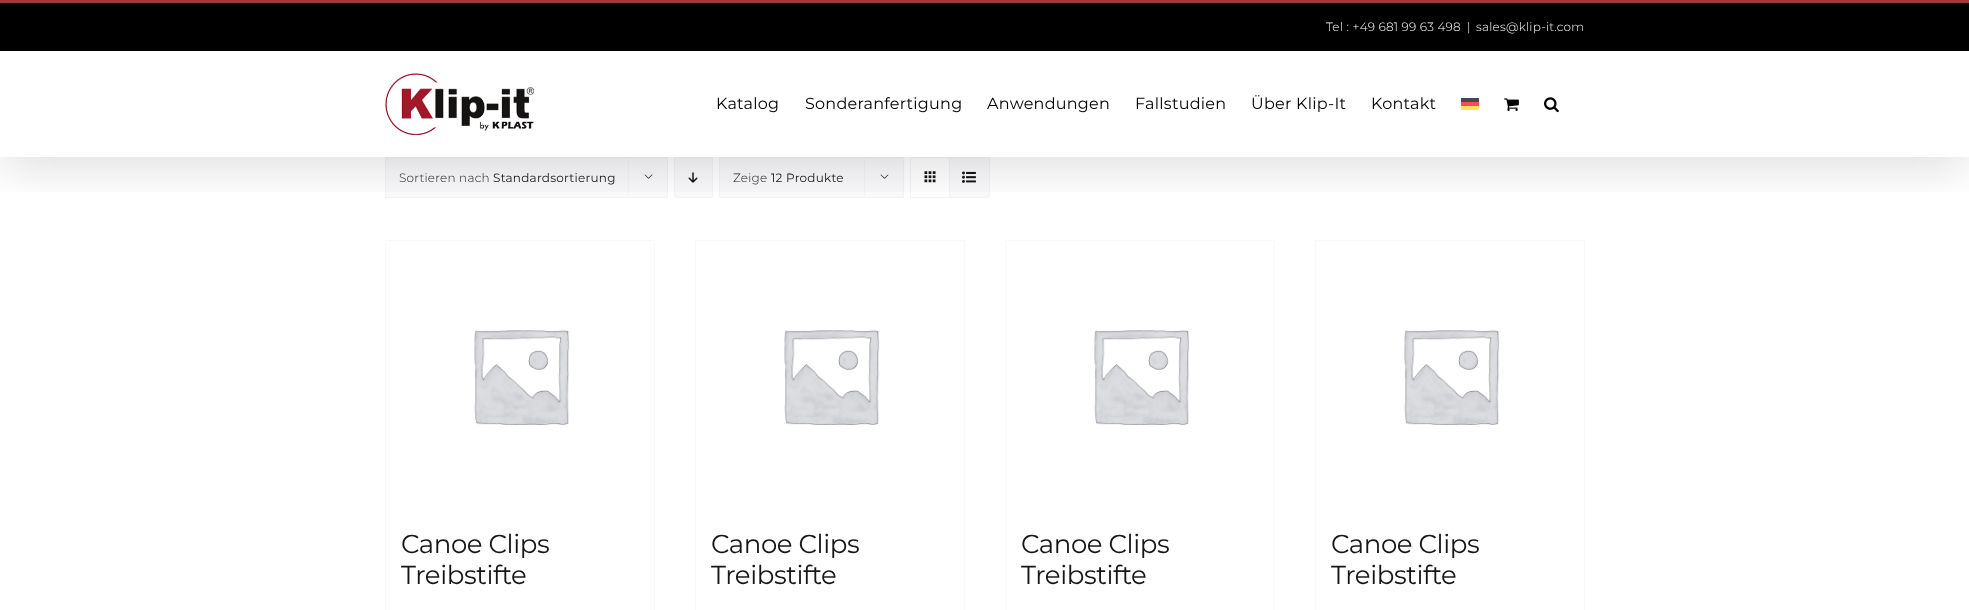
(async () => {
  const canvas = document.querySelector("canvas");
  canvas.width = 1969;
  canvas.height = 610;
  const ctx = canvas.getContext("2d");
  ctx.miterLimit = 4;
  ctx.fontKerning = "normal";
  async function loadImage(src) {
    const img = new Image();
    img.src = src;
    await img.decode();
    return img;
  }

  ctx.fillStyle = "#ffffff";
  ctx.fillRect(0, 0, 1969, 610);
  ctx.fillStyle = "#f9f9fb";
  ctx.beginPath();
  ctx.rect(385.5, 157.5, 282, 40);
  ctx.fill();
  ctx.strokeStyle = "#f2f3f5";
  ctx.stroke();
  ctx.fillStyle = "#f2f3f5";
  ctx.fillRect(628, 157, 1, 39);
  ctx.drawImage(await loadImage("img/4.png"), 644, 174, 9, 5);
  ctx.fillStyle = "#f9f9fb";
  ctx.beginPath();
  ctx.rect(674.5, 157.5, 38, 40);
  ctx.fill();
  ctx.stroke();
  ctx.drawImage(await loadImage("img/5.png"), 688, 172, 10, 11);
  ctx.beginPath();
  ctx.rect(719.5, 157.5, 184, 40);
  ctx.fill();
  ctx.stroke();
  ctx.fillStyle = "#f2f3f5";
  ctx.fillRect(864, 157, 1, 39);
  ctx.drawImage(await loadImage("img/4.png"), 880, 174, 9, 5);
  ctx.strokeRect(910.5, 157.5, 79, 40);
  ctx.fillRect(949, 158, 1, 39);
  ctx.drawImage(await loadImage("img/6.png"), 924, 171, 12, 12);
  ctx.fillStyle = "#f9f9fb";
  ctx.fillRect(950, 158, 39, 39);
  ctx.drawImage(await loadImage("img/7.png"), 962, 171, 14, 12);
  for (const [x, y, w, h, color] of [
    [385, 240, 270, 1, "#f9f9fb"],
    [654, 240, 1, 370, "#f9f9fb"],
    [385, 240, 1, 370, "#f9f9fb"],
    [695, 240, 270, 1, "#f9f9fb"],
    [964, 240, 1, 370, "#f9f9fb"],
    [695, 240, 1, 370, "#f9f9fb"],
    [1005, 240, 270, 1, "#f9f9fb"],
    [1274, 240, 1, 370, "#f9f9fb"],
    [1005, 240, 1, 370, "#f9f9fb"],
    [1315, 240, 270, 1, "#f9f9fb"],
    [1584, 240, 1, 370, "#f9f9fb"],
    [1315, 240, 1, 370, "#f9f9fb"],
  ]) {
    ctx.fillStyle = color;
    ctx.fillRect(x, y, w, h);
  }
  ctx.save();
  ctx.beginPath();
  ctx.rect(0, 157, 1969, 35);
  ctx.clip();
  ctx.fillStyle = "rgba(0, 0, 0, 0.14)";
  ctx.filter = "blur(25px)";
  ctx.beginPath();
  ctx.rect(2, 12, 1965, 153);
  ctx.fill();
  ctx.filter = "none";
  ctx.restore();
  ctx.fillStyle = "#000000";
  ctx.fillRect(0, 3, 1969, 48);
  ctx.fillStyle = "#a4383d";
  ctx.fillRect(0, 0, 1969, 3);
  ctx.drawImage(await loadImage("img/1.png"), 385, 73, 149, 62);
  for (const [x, y, w, h, color] of [
    [1461, 102, 18, 4, "#ff4b55"],
    [1461, 106, 18, 4, "#ffe15a"],
    [1461, 98, 18, 4, "#464655"],
  ]) {
    ctx.fillStyle = color;
    ctx.fillRect(x, y, w, h);
  }
  ctx.drawImage(await loadImage("img/2.png"), 1504, 98, 15, 13);
  ctx.drawImage(await loadImage("img/3.png"), 1544, 97, 15, 16);
  ctx.drawImage(await loadImage("img/8.png"), 474, 330, 96, 95);
  ctx.drawImage(await loadImage("img/9.png"), 784, 330, 96, 95);
  ctx.drawImage(await loadImage("img/10.png"), 1094, 330, 96, 95);
  ctx.drawImage(await loadImage("img/10.png"), 1404, 330, 96, 95);
  ctx.letterSpacing = "0.25px";
  ctx.font = "300 12px Montserrat";
  ctx.fillStyle = "#ffffff";
  for (const [text, x, y] of [
    ["Tel : +49 681 99 63 498", 1326, 31],
    ["|", 1467, 31],
    ["sales@klip-it.com", 1476, 31],
  ]) {
    ctx.fillText(text, x, y);
  }
  ctx.font = "16px Montserrat";
  ctx.fillStyle = "#000000";
  for (const [text, x, y] of [
    ["Katalog", 716, 109],
    ["Sonderanfertigung", 805, 109],
    ["Anwendungen", 987, 109],
    ["Fallstudien", 1135, 109],
    ["Über Klip-It", 1251, 109],
    ["Kontakt", 1371, 109],
  ]) {
    ctx.fillText(text, x, y);
  }
  ctx.font = "300 12px Montserrat";
  ctx.fillStyle = "#141617";
  ctx.fillText("Sortieren nach", 399, 182);
  ctx.font = "12px Montserrat";
  ctx.fillText("Standardsortierung", 493, 182);
  ctx.font = "300 12px Montserrat";
  ctx.fillText("Zeige", 733, 182);
  ctx.font = "12px Montserrat";
  ctx.fillText("12 Produkte", 771, 182);
  ctx.letterSpacing = "-0.4px";
  ctx.font = "26px Montserrat";
  for (const [text, x, y] of [
    ["Canoe Clips", 401, 553],
    ["Treibstifte", 401, 584],
    ["Canoe Clips", 711, 553],
    ["Treibstifte", 711, 584],
    ["Canoe Clips", 1021, 553],
    ["Treibstifte", 1021, 584],
    ["Canoe Clips", 1331, 553],
    ["Treibstifte", 1331, 584],
  ]) {
    ctx.fillText(text, x, y);
  }
})();
